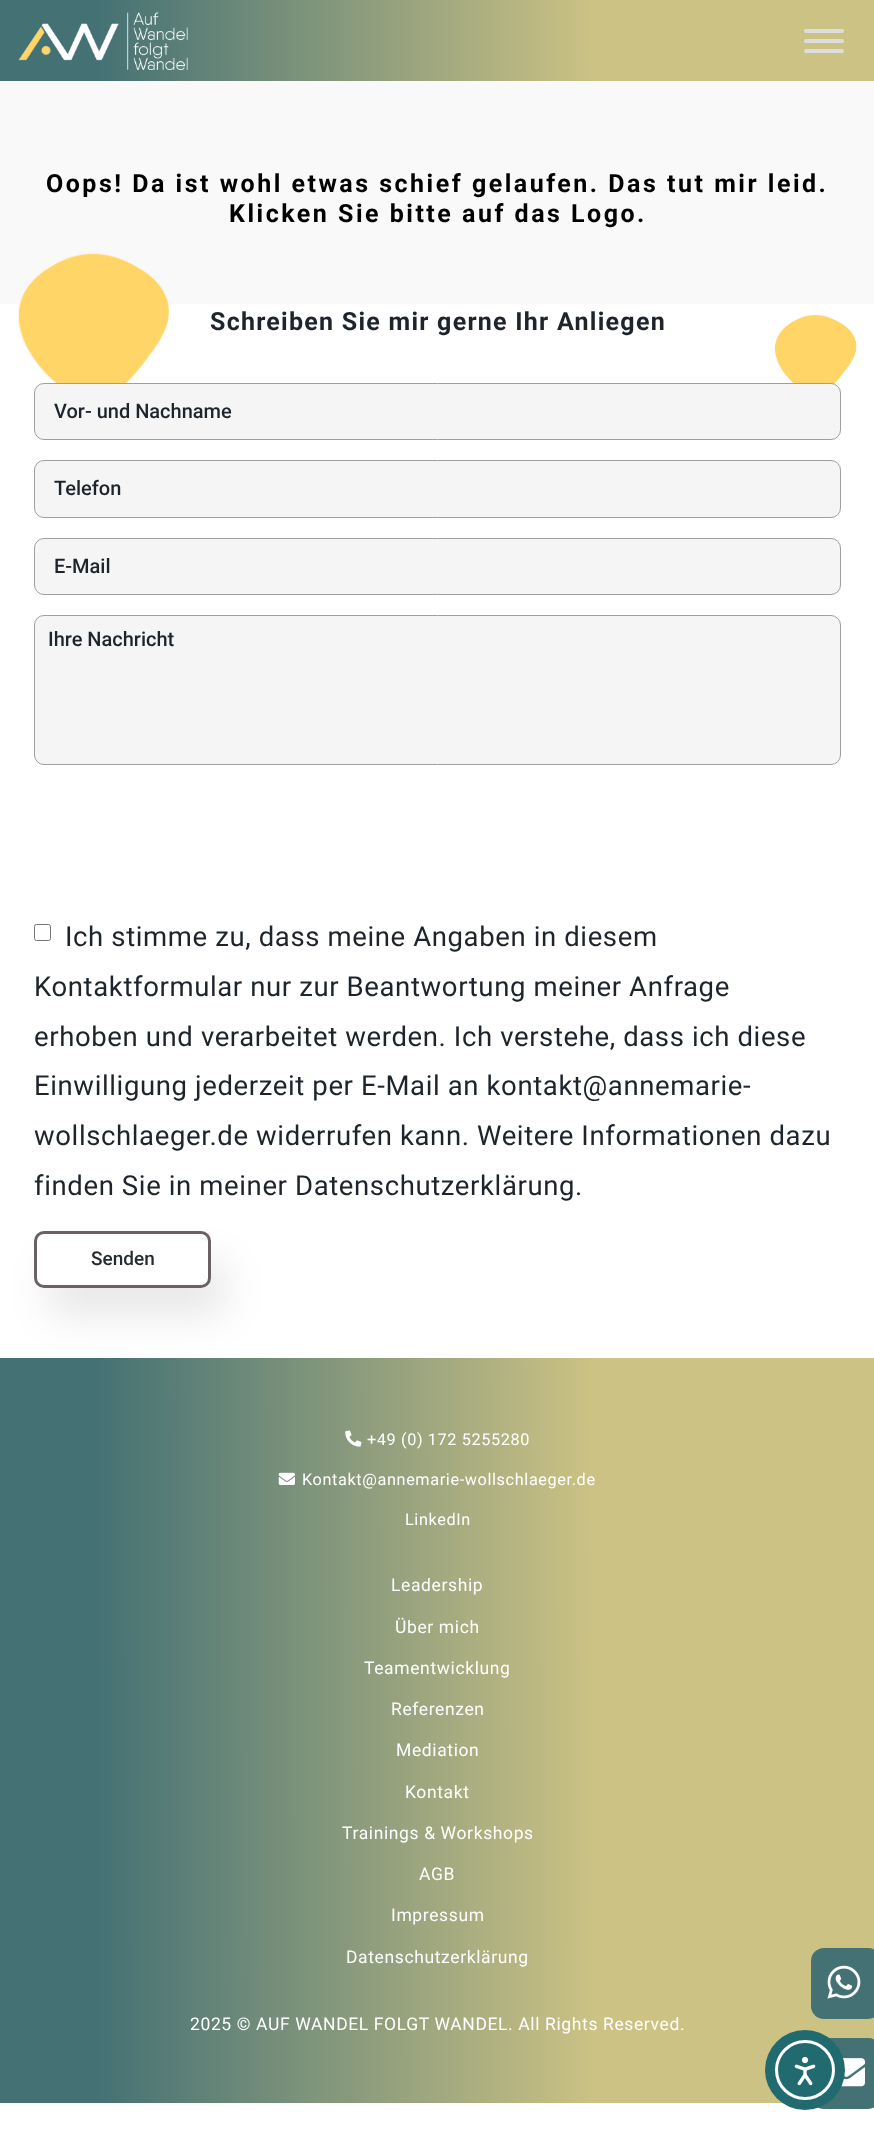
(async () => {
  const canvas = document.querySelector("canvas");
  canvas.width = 874;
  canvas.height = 2139;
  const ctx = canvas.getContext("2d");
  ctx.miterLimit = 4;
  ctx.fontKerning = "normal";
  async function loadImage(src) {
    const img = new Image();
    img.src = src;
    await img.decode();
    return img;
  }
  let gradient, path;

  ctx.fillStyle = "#ffffff";
  ctx.fillRect(0, 0, 874, 2139);
  gradient = ctx.createLinearGradient(-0.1, 41, 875, 40);
  gradient.addColorStop(0.11, "#447174");
  gradient.addColorStop(0.68, "#ccc284");
  ctx.fillStyle = gradient;
  ctx.fillRect(0, 0, 874, 81);
  ctx.drawImage(await loadImage("img/1.png"), 18, 12, 170, 58);
  ctx.fillStyle = "#dddddd";
  ctx.beginPath();
  ctx.roundRect(804, 29, 40, 4, 2);
  ctx.fill();
  ctx.beginPath();
  ctx.roundRect(804, 39, 40, 4, 2);
  ctx.fill();
  ctx.beginPath();
  ctx.roundRect(804, 49, 40, 4, 2);
  ctx.fill();
  ctx.fillStyle = "#faf9f9";
  ctx.fillRect(0, 81, 874, 223);
  ctx.drawImage(await loadImage("img/2.png"), 18, 253, 151, 130);
  ctx.drawImage(await loadImage("img/3.png"), 775, 315, 82, 69);
  ctx.fillStyle = "#f5f5f5";
  ctx.beginPath();
  ctx.roundRect(34.5, 383.5, 806, 56, 9.5);
  ctx.fill();
  ctx.strokeStyle = "#9f9f9f";
  ctx.stroke();
  ctx.beginPath();
  ctx.roundRect(34.5, 460.5, 806, 57, 9.5);
  ctx.fill();
  ctx.stroke();
  ctx.beginPath();
  ctx.roundRect(34.5, 538.5, 806, 56, 9.5);
  ctx.fill();
  ctx.stroke();
  ctx.beginPath();
  ctx.roundRect(34.5, 615.5, 806, 149, 9.5);
  ctx.fill();
  ctx.stroke();
  ctx.beginPath();
  ctx.roundRect(34.5, 924.5, 16, 16, 2);
  ctx.strokeStyle = "#767676";
  ctx.stroke();
  gradient = ctx.createLinearGradient(-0.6, 1731, 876, 1729);
  gradient.addColorStop(0.11, "#447174");
  gradient.addColorStop(0.68, "#ccc284");
  ctx.fillStyle = gradient;
  ctx.fillRect(0, 1358, 874, 745);
  ctx.save();
  path = new Path2D("M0 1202H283V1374H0ZM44 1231H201C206.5 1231 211 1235.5 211 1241V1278C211 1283.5 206.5 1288 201 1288H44C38.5 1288 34 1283.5 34 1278V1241C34 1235.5 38.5 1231 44 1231Z");
  ctx.clip(path, "evenodd");
  ctx.fillStyle = "rgba(0, 0, 0, 0.09)";
  ctx.filter = "blur(19px)";
  ctx.beginPath();
  ctx.roundRect(48, 1260, 177, 56, 10);
  ctx.fill();
  ctx.filter = "none";
  ctx.restore();
  ctx.beginPath();
  ctx.roundRect(35.5, 1232.5, 174, 54, 8.5);
  ctx.strokeStyle = "#6a6262";
  ctx.lineWidth = 3;
  ctx.stroke();
  ctx.drawImage(await loadImage("img/4.png"), 345, 1430, 17, 17);
  ctx.drawImage(await loadImage("img/5.png"), 278, 1472, 17, 13);
  ctx.fillStyle = "#447174";
  ctx.beginPath();
  ctx.roundRect(811, 2038, 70, 71, 13);
  ctx.fill();
  ctx.drawImage(await loadImage("img/8.png"), 841, 2058, 24, 29);
  ctx.fillStyle = "#206a70";
  ctx.beginPath();
  ctx.arc(805, 2070, 40, 0, Math.PI * 2);
  ctx.fill();
  ctx.beginPath();
  ctx.arc(805, 2070, 28.5, 0, Math.PI * 2);
  ctx.strokeStyle = "#ffffff";
  ctx.stroke();
  ctx.drawImage(await loadImage("img/6.png"), 794, 2056, 22, 30);
  ctx.fillStyle = "#447174";
  ctx.beginPath();
  ctx.roundRect(811, 1948, 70, 71, 13);
  ctx.fill();
  ctx.drawImage(await loadImage("img/7.png"), 827, 1965, 34, 34);
  ctx.letterSpacing = "2.5px";
  ctx.font = "bold 25px Roboto";
  ctx.fillStyle = "#000000";
  ctx.fillText("Oops! Da ist wohl etwas schief gelaufen. Das tut mir leid.", 46, 192);
  ctx.fillText("Klicken Sie bitte auf das Logo.", 229, 222);
  ctx.letterSpacing = "1.25px";
  ctx.fillStyle = "#1d242c";
  ctx.fillText("Schreiben Sie mir gerne Ihr Anliegen", 210, 330);
  ctx.letterSpacing = "0px";
  ctx.font = "500 20px Roboto";
  for (const [text, x, y] of [
    ["Vor- und Nachname", 54, 418],
    ["Telefon", 54, 495],
    ["E-Mail", 54, 573],
    ["Ihre Nachricht", 48, 646],
  ]) {
    ctx.fillText(text, x, y);
  }
  ctx.letterSpacing = "0.62px";
  ctx.font = "27.5px Roboto";
  for (const [text, x, y] of [
    ["Ich stimme zu, dass meine Angaben in diesem", 65, 946],
    ["Kontaktformular nur zur Beantwortung meiner Anfrage", 34, 996],
    ["erhoben und verarbeitet werden. Ich verstehe, dass ich diese", 34, 1046],
    ["Einwilligung jederzeit per E-Mail an kontakt@annemarie-", 34, 1095],
    ["wollschlaeger.de widerrufen kann. Weitere Informationen dazu", 34, 1145],
    ["finden Sie in meiner Datenschutzerklärung.", 34, 1195],
  ]) {
    ctx.fillText(text, x, y);
  }
  ctx.letterSpacing = "0px";
  ctx.font = "500 19px Roboto";
  ctx.fillStyle = "#242b30";
  ctx.fillText("Senden", 91, 1265);
  ctx.letterSpacing = "0.62px";
  ctx.font = "16.25px Roboto";
  ctx.fillStyle = "#ffffff";
  for (const [text, x, y] of [
    ["+49 (0) 172 5255280", 367, 1445],
    ["Kontakt@annemarie-wollschlaeger.de", 302, 1485],
    ["LinkedIn", 405, 1525],
  ]) {
    ctx.fillText(text, x, y);
  }
  ctx.font = "17.5px Roboto";
  for (const [text, x, y] of [
    ["Leadership", 391, 1591],
    ["Über mich", 395, 1633],
    ["Teamentwicklung", 364, 1674],
    ["Referenzen", 391, 1715],
    ["Mediation", 396, 1756],
    ["Kontakt", 405, 1798],
    ["Trainings & Workshops", 342, 1839],
    ["AGB", 419, 1880],
    ["Impressum", 391, 1921],
    ["Datenschutzerklärung", 346, 1963],
    ["2025 © AUF WANDEL FOLGT WANDEL. All Rights Reserved.", 190, 2030],
  ]) {
    ctx.fillText(text, x, y);
  }
})();
